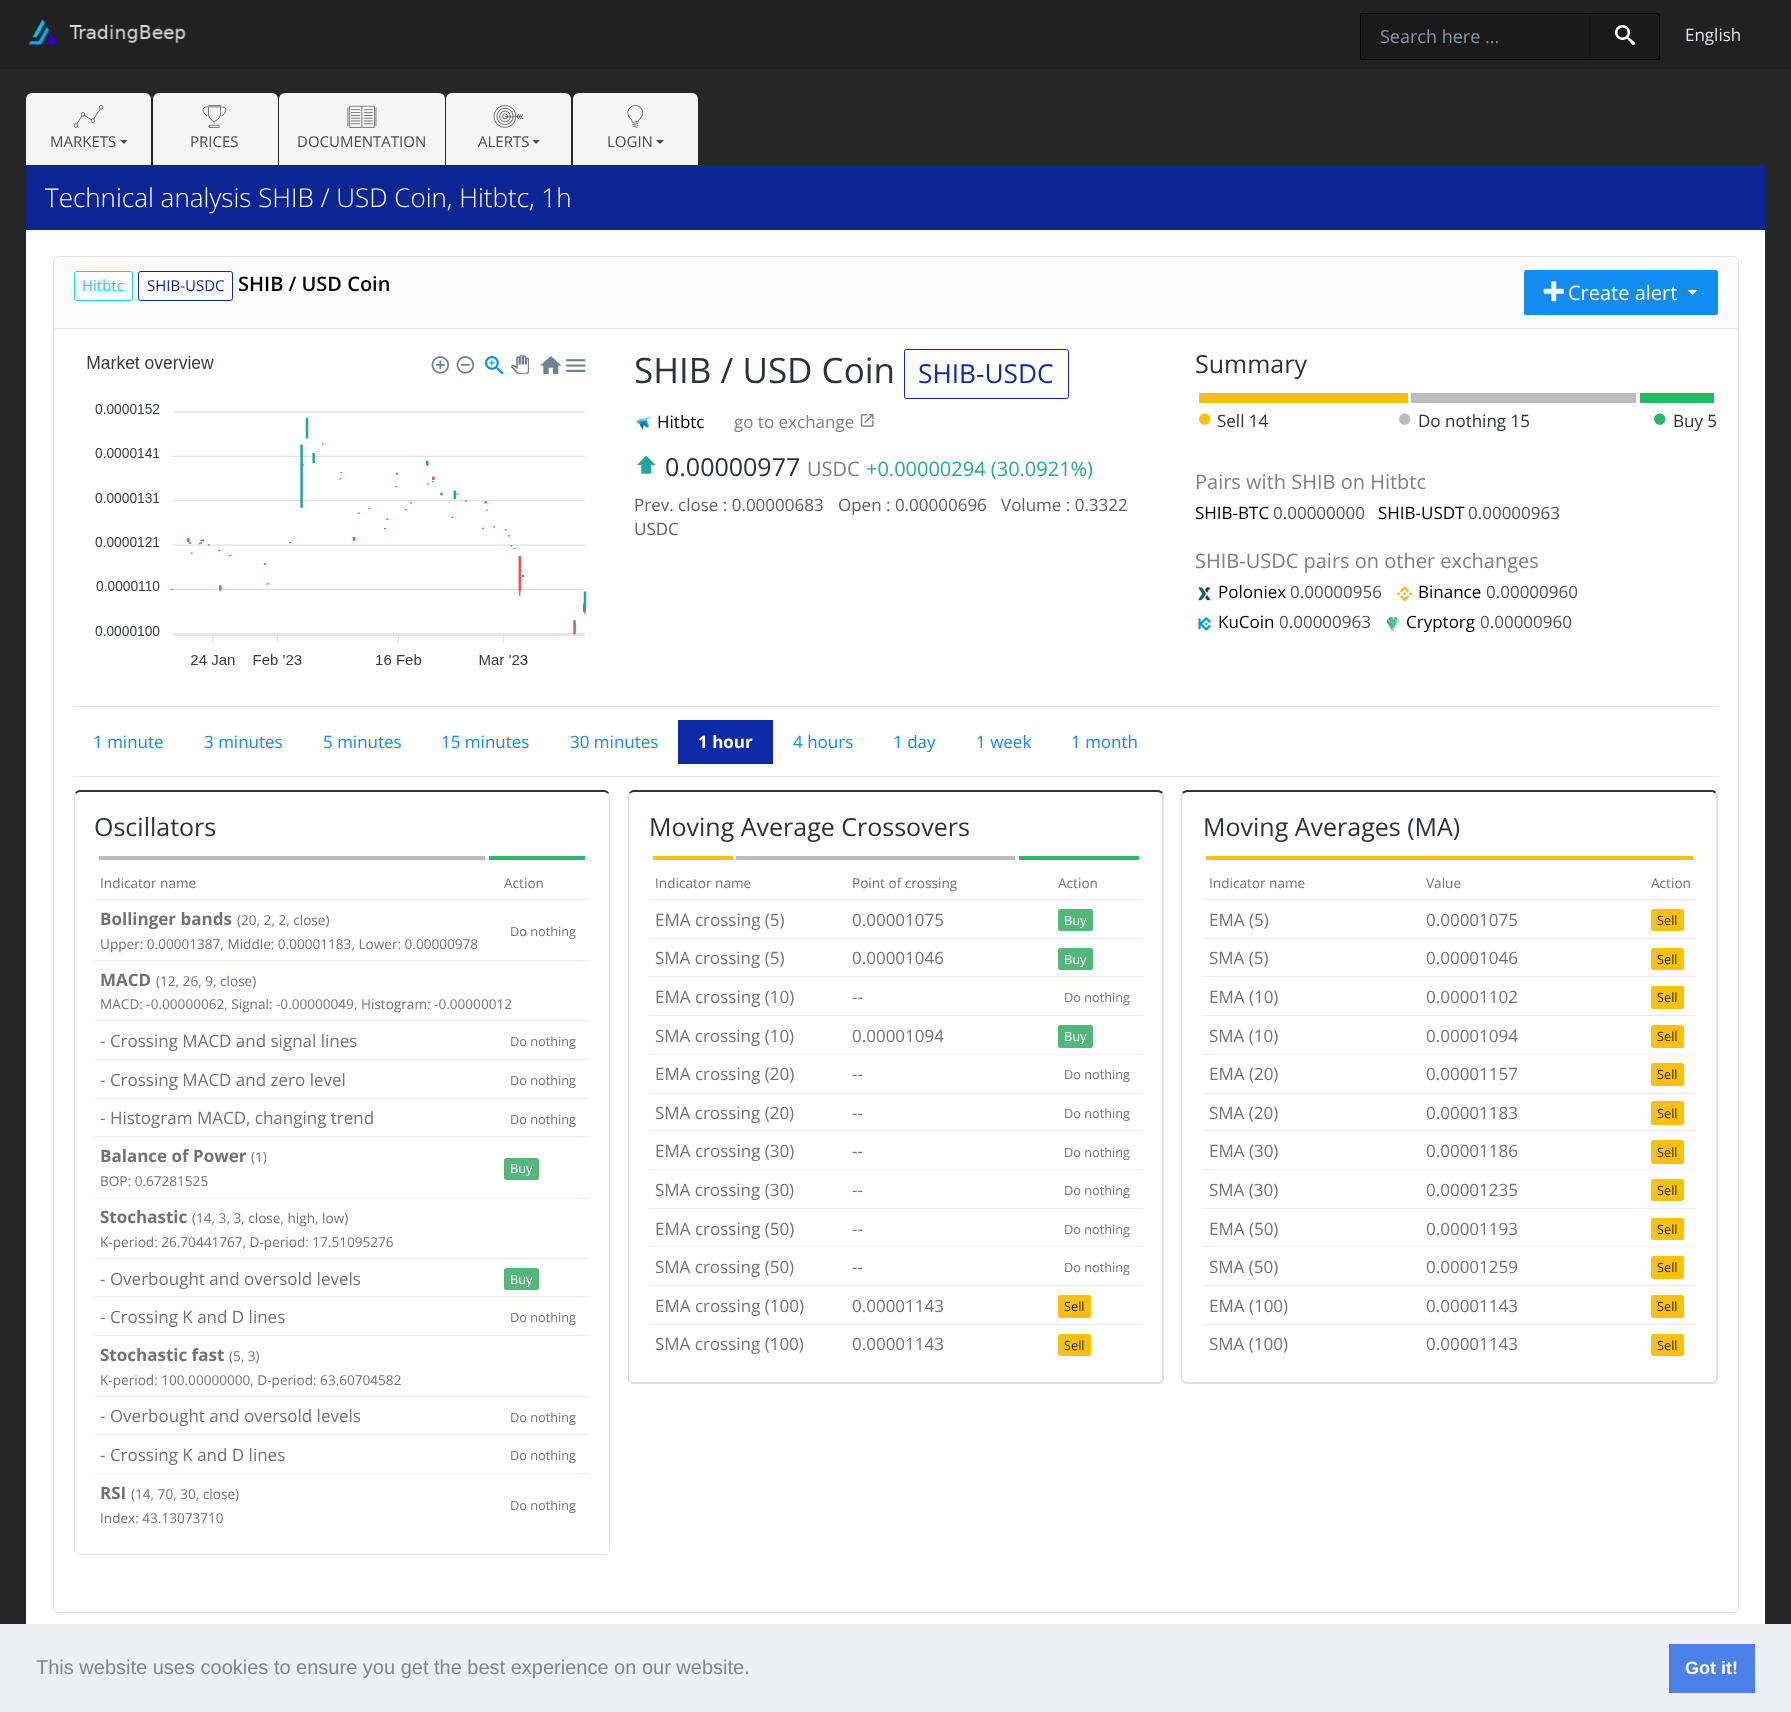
(async () => {
  const canvas = document.querySelector("canvas");
  canvas.width = 1791;
  canvas.height = 1712;
  const ctx = canvas.getContext("2d");
  ctx.miterLimit = 4;
  ctx.fontKerning = "normal";
  async function loadImage(src) {
    const img = new Image();
    img.src = src;
    await img.decode();
    return img;
  }
  let path;

  ctx.fillStyle = "#262626";
  ctx.fillRect(0, 0, 1791, 1712);
  ctx.fillStyle = "#212121";
  ctx.fillRect(0, 0, 1791, 69);
  ctx.drawImage(await loadImage("img/1.png"), 28, 19, 158, 26);
  ctx.fillStyle = "rgba(0, 0, 0, 0.2)";
  ctx.beginPath();
  ctx.roundRect(1360.5, 13.5, 299, 46, 2);
  ctx.fill();
  ctx.strokeStyle = "#000000";
  ctx.stroke();
  ctx.fillStyle = "rgba(0, 0, 0, 0.3)";
  ctx.fillRect(1589, 13, 1, 45);
  ctx.drawImage(await loadImage("img/2.png"), 1615, 25, 20, 20);
  ctx.fillStyle = "#f5f5f5";
  ctx.beginPath();
  ctx.roundRect(26, 93, 125, 72, [6, 6, 0, 0]);
  ctx.fill();
  ctx.drawImage(await loadImage("img/3.png"), 73, 105, 31, 23);
  ctx.fillStyle = "#4d4c4c";
  path = new Path2D("M120 140H127.5L124 144Z");
  ctx.fill(path);
  ctx.fillStyle = "#f5f5f5";
  ctx.beginPath();
  ctx.roundRect(153, 93, 125, 72, [6, 6, 0, 0]);
  ctx.fill();
  ctx.drawImage(await loadImage("img/4.png"), 202, 105, 25, 23);
  ctx.beginPath();
  ctx.roundRect(279, 93, 166, 72, [6, 6, 0, 0]);
  ctx.fill();
  ctx.drawImage(await loadImage("img/5.png"), 347, 105, 30, 23);
  ctx.beginPath();
  ctx.roundRect(446, 93, 125, 72, [6, 6, 0, 0]);
  ctx.fill();
  ctx.drawImage(await loadImage("img/6.png"), 493, 105, 31, 23);
  ctx.fillStyle = "#4d4c4c";
  path = new Path2D("M532.5 140H540L536 144Z");
  ctx.fill(path);
  ctx.fillStyle = "#f5f5f5";
  ctx.beginPath();
  ctx.roundRect(573, 93, 125, 72, [6, 6, 0, 0]);
  ctx.fill();
  ctx.drawImage(await loadImage("img/7.png"), 627, 105, 16, 23);
  ctx.fillStyle = "#4d4c4c";
  path = new Path2D("M656 140H664L660 144Z");
  ctx.fill(path);
  ctx.fillStyle = "#0c2594";
  ctx.beginPath();
  ctx.roundRect(26, 165, 1739, 65, [0, 5, 0, 0]);
  ctx.fill();
  ctx.fillStyle = "#ffffff";
  ctx.fillRect(26, 230, 1739, 1394);
  ctx.beginPath();
  ctx.roundRect(53.5, 256.5, 1685, 1356, 5.5);
  ctx.strokeStyle = "#e0e0e0";
  ctx.stroke();
  ctx.fillStyle = "#fcfcfc";
  ctx.beginPath();
  ctx.roundRect(54, 258, 1684, 71, [6, 6, 0, 0]);
  ctx.fill();
  ctx.fillStyle = "#e0e0e0";
  ctx.fillRect(54, 328, 1684, 1);
  ctx.beginPath();
  ctx.roundRect(74.5, 271.5, 58, 29, 2);
  ctx.strokeStyle = "#1ad0fc";
  ctx.stroke();
  ctx.beginPath();
  ctx.roundRect(138.5, 271.5, 94, 29, 2);
  ctx.strokeStyle = "#0e2aa7";
  ctx.stroke();
  ctx.fillStyle = "#118cf1";
  ctx.beginPath();
  ctx.roundRect(1524, 270, 194, 45, 2.5);
  ctx.fill();
  ctx.drawImage(await loadImage("img/8.png"), 1543, 281, 21, 21);
  ctx.fillStyle = "#ffffff";
  path = new Path2D("M1687.5 290H1697.5L1692.5 295Z");
  ctx.fill(path);
  ctx.drawImage(await loadImage("img/15.png"), 87, 356, 500, 309);
  ctx.drawImage(await loadImage("img/9.png"), 431, 356, 19, 18);
  ctx.drawImage(await loadImage("img/10.png"), 456, 356, 19, 18);
  ctx.drawImage(await loadImage("img/11.png"), 485, 356, 19, 19);
  ctx.drawImage(await loadImage("img/12.png"), 510, 355, 19, 19);
  ctx.drawImage(await loadImage("img/13.png"), 540, 356, 22, 19);
  ctx.drawImage(await loadImage("img/14.png"), 566, 359, 20, 13);
  ctx.beginPath();
  ctx.roundRect(904.5, 349.5, 164, 49, 2);
  ctx.stroke();
  ctx.drawImage(await loadImage("img/16.png"), 635, 415, 16, 15);
  ctx.drawImage(await loadImage("img/17.png"), 860, 414, 14, 13);
  ctx.drawImage(await loadImage("img/18.png"), 637, 455, 19, 19);
  for (const [x, y, w, h, color] of [
    [1199, 393, 209, 10, "#ffc107"],
    [1411, 393, 225, 10, "#bdbdbd"],
    [1640, 393, 74, 10, "#27b963"],
  ]) {
    ctx.fillStyle = color;
    ctx.fillRect(x, y, w, h);
  }
  ctx.drawImage(await loadImage("img/19.png"), 1199, 413, 12, 12);
  ctx.drawImage(await loadImage("img/20.png"), 1399, 413, 12, 12);
  ctx.drawImage(await loadImage("img/21.png"), 1654, 413, 12, 12);
  ctx.drawImage(await loadImage("img/22.png"), 1198, 587, 13, 14);
  ctx.drawImage(await loadImage("img/23.png"), 1396, 586, 17, 16);
  ctx.drawImage(await loadImage("img/24.png"), 1198, 616, 13, 15);
  ctx.drawImage(await loadImage("img/25.png"), 1386, 616, 14, 16);
  for (const [x, y, w, h, color] of [
    [74, 706, 1644, 1, "#e1e5f1"],
    [678, 720, 95, 44, "#0e2aa7"],
    [74, 776, 1644, 1, "#e1e5f1"],
  ]) {
    ctx.fillStyle = color;
    ctx.fillRect(x, y, w, h);
  }
  ctx.fillStyle = "#333333";
  path = new Path2D("M80 790C78 790 76 791 75 793L76 794C77 793 78 792 80 792H604C606 792 607 793 608 794L609 793C608 791 606 790 604 790Z");
  ctx.fill(path);
  ctx.fillStyle = "#e0e0e0";
  path = new Path2D("M610 1549V796L609 793L608 794L609 796V1549C609 1550 609 1552 608 1553C609 1552 610 1550 610 1549Z");
  ctx.fill(path);
  path = new Path2D("M80 1555H604C606 1555 607 1554 608 1553C607 1554 606 1554 604 1554H80C78 1554 77 1553 76 1552V1553C77 1554 78 1555 80 1555Z");
  ctx.fill(path);
  path = new Path2D("M75 793C74 794 74 795 74 796V1549C74 1551 75 1552 76 1553V1552C75 1552 75 1550 75 1549V796L76 794Z");
  ctx.fill(path);
  for (const [x, y, w, h, color] of [
    [99, 856, 386, 4, "#bdbdbd"],
    [489, 856, 96, 4, "#27b963"],
    [95, 899, 494, 1, "#e6ecf3"],
    [95, 960, 494, 1, "#e6ecf3"],
    [95, 1020, 494, 1, "#e6ecf3"],
    [95, 1059, 494, 1, "#e6ecf3"],
    [95, 1098, 494, 1, "#e6ecf3"],
    [95, 1136, 494, 1, "#e6ecf3"],
  ]) {
    ctx.fillStyle = color;
    ctx.fillRect(x, y, w, h);
  }
  ctx.fillStyle = "#53b77c";
  ctx.beginPath();
  ctx.roundRect(504, 1158, 35, 22, 2.5);
  ctx.fill();
  ctx.fillStyle = "#e6ecf3";
  ctx.fillRect(95, 1198, 494, 1);
  ctx.fillRect(95, 1258, 494, 1);
  ctx.fillStyle = "#53b77c";
  ctx.beginPath();
  ctx.roundRect(504, 1268, 35, 22, 2.5);
  ctx.fill();
  for (const [x, y, w, h, color] of [
    [95, 1296, 494, 1, "#e6ecf3"],
    [95, 1335, 494, 1, "#e6ecf3"],
    [95, 1396, 494, 1, "#e6ecf3"],
    [95, 1434, 494, 1, "#e6ecf3"],
    [95, 1473, 494, 1, "#e6ecf3"],
  ]) {
    ctx.fillStyle = color;
    ctx.fillRect(x, y, w, h);
  }
  ctx.fillStyle = "#333333";
  path = new Path2D("M634 790C632 790 630 791 629 793L630 794C630 793 632 792 634 792H1158C1159 792 1161 793 1162 794L1163 792C1161 791 1160 790 1158 790Z");
  ctx.fill(path);
  ctx.fillStyle = "#e0e0e0";
  path = new Path2D("M1164 1380L1162 1382L1161 1381L1162 1378V796V794L1163 792L1164 794Z");
  ctx.fill(path);
  path = new Path2D("M632 1384L629 1382L630 1381L633 1382H1158L1161 1381L1162 1382L1160 1384Z");
  ctx.fill(path);
  path = new Path2D("M629 793L628 796V1378C628 1379 628 1381 629 1382L630 1381C630 1380 629 1379 629 1378V796L630 794Z");
  ctx.fill(path);
  for (const [x, y, w, h, color] of [
    [653, 856, 80, 4, "#ffc107"],
    [736, 856, 279, 4, "#bdbdbd"],
    [1019, 856, 120, 4, "#27b963"],
    [649, 899, 494, 1, "#e6ecf3"],
  ]) {
    ctx.fillStyle = color;
    ctx.fillRect(x, y, w, h);
  }
  ctx.fillStyle = "#53b77c";
  ctx.beginPath();
  ctx.roundRect(1058, 909, 35, 22, 2.5);
  ctx.fill();
  ctx.fillStyle = "#e6ecf3";
  ctx.fillRect(649, 938, 494, 1);
  ctx.fillStyle = "#53b77c";
  ctx.beginPath();
  ctx.roundRect(1058, 948, 35, 22, 2.5);
  ctx.fill();
  ctx.fillStyle = "#e6ecf3";
  ctx.fillRect(649, 976, 494, 1);
  ctx.fillRect(649, 1015, 494, 1);
  ctx.fillStyle = "#53b77c";
  ctx.beginPath();
  ctx.roundRect(1058, 1025, 35, 23, 2.5);
  ctx.fill();
  for (const [x, y, w, h, color] of [
    [649, 1054, 494, 1, "#e6ecf3"],
    [649, 1093, 494, 1, "#e6ecf3"],
    [649, 1130, 494, 1, "#e6ecf3"],
    [649, 1169, 494, 1, "#e6ecf3"],
    [649, 1208, 494, 1, "#e6ecf3"],
    [649, 1246, 494, 1, "#e6ecf3"],
    [649, 1285, 494, 1, "#e6ecf3"],
  ]) {
    ctx.fillStyle = color;
    ctx.fillRect(x, y, w, h);
  }
  ctx.fillStyle = "#ffc107";
  ctx.beginPath();
  ctx.roundRect(1058, 1295, 33, 23, 2.5);
  ctx.fill();
  ctx.fillStyle = "#e6ecf3";
  ctx.fillRect(649, 1324, 494, 1);
  ctx.fillStyle = "#ffc107";
  ctx.beginPath();
  ctx.roundRect(1058, 1334, 33, 22, 2.5);
  ctx.fill();
  ctx.fillStyle = "#333333";
  path = new Path2D("M1187 790C1185 790 1184 791 1182 792L1183 794C1184 793 1186 792 1187 792H1712C1713 792 1715 793 1715 794L1716 792C1715 791 1714 790 1712 790Z");
  ctx.fill(path);
  ctx.fillStyle = "#e0e0e0";
  path = new Path2D("M1718 1380L1716 1382L1715 1381L1716 1378V796L1715 794L1716 792L1718 794Z");
  ctx.fill(path);
  path = new Path2D("M1185 1384L1183 1382L1184 1381L1187 1382H1712L1715 1381L1716 1382L1714 1384Z");
  ctx.fill(path);
  path = new Path2D("M1181 794L1182 792L1183 794L1182 796V1378C1182 1379 1183 1380 1184 1381L1183 1382L1181 1380Z");
  ctx.fill(path);
  ctx.fillStyle = "#ffc107";
  ctx.fillRect(1206, 856, 487, 4);
  ctx.fillStyle = "#e6ecf3";
  ctx.fillRect(1203, 899, 493, 1);
  ctx.fillStyle = "#ffc107";
  ctx.beginPath();
  ctx.roundRect(1651, 909, 33, 22, 2.5);
  ctx.fill();
  ctx.fillStyle = "#e6ecf3";
  ctx.fillRect(1203, 938, 493, 1);
  ctx.fillStyle = "#ffc107";
  ctx.beginPath();
  ctx.roundRect(1651, 948, 33, 22, 2.5);
  ctx.fill();
  ctx.fillStyle = "#e6ecf3";
  ctx.fillRect(1203, 976, 493, 1);
  ctx.fillStyle = "#ffc107";
  ctx.beginPath();
  ctx.roundRect(1651, 986, 33, 23, 2.5);
  ctx.fill();
  ctx.fillStyle = "#e6ecf3";
  ctx.fillRect(1203, 1015, 493, 1);
  ctx.fillStyle = "#ffc107";
  ctx.beginPath();
  ctx.roundRect(1651, 1025, 33, 23, 2.5);
  ctx.fill();
  ctx.fillStyle = "#e6ecf3";
  ctx.fillRect(1203, 1054, 493, 1);
  ctx.fillStyle = "#ffc107";
  ctx.beginPath();
  ctx.roundRect(1651, 1063, 33, 23, 2.5);
  ctx.fill();
  ctx.fillStyle = "#e6ecf3";
  ctx.fillRect(1203, 1093, 493, 1);
  ctx.fillStyle = "#ffc107";
  ctx.beginPath();
  ctx.roundRect(1651, 1101, 33, 24, 2.5);
  ctx.fill();
  ctx.fillStyle = "#e6ecf3";
  ctx.fillRect(1203, 1130, 493, 1);
  ctx.fillStyle = "#ffc107";
  ctx.beginPath();
  ctx.roundRect(1651, 1140, 33, 24, 2.5);
  ctx.fill();
  ctx.fillStyle = "#e6ecf3";
  ctx.fillRect(1203, 1169, 493, 1);
  ctx.fillStyle = "#ffc107";
  ctx.beginPath();
  ctx.roundRect(1651, 1179, 33, 22, 2.5);
  ctx.fill();
  ctx.fillStyle = "#e6ecf3";
  ctx.fillRect(1203, 1208, 493, 1);
  ctx.fillStyle = "#ffc107";
  ctx.beginPath();
  ctx.roundRect(1651, 1218, 33, 22, 2.5);
  ctx.fill();
  ctx.fillStyle = "#e6ecf3";
  ctx.fillRect(1203, 1246, 493, 1);
  ctx.fillStyle = "#ffc107";
  ctx.beginPath();
  ctx.roundRect(1651, 1256, 33, 23, 2.5);
  ctx.fill();
  ctx.fillStyle = "#e6ecf3";
  ctx.fillRect(1203, 1285, 493, 1);
  ctx.fillStyle = "#ffc107";
  ctx.beginPath();
  ctx.roundRect(1651, 1295, 33, 23, 2.5);
  ctx.fill();
  ctx.fillStyle = "#e6ecf3";
  ctx.fillRect(1203, 1324, 493, 1);
  ctx.fillStyle = "#ffc107";
  ctx.beginPath();
  ctx.roundRect(1651, 1334, 33, 22, 2.5);
  ctx.fill();
  ctx.fillStyle = "#edeff5";
  ctx.fillRect(0, 1624, 1791, 88);
  ctx.fillStyle = "#4b81e8";
  ctx.fillRect(1669, 1644, 86, 49);
  ctx.font = "18px Open Sans";
  ctx.fillStyle = "#8796af";
  ctx.fillText("Search here ...", 1380, 43);
  ctx.font = "17px Open Sans";
  ctx.fillStyle = "#dae4ef";
  ctx.fillText("English", 1685, 41);
  ctx.font = "15px Open Sans";
  ctx.fillStyle = "#4d4c4c";
  for (const [text, x, y] of [
    ["MARKETS", 50, 147],
    ["PRICES", 190, 147],
    ["DOCUMENTATION", 297, 147],
    ["ALERTS", 478, 147],
    ["LOGIN", 607, 147],
  ]) {
    ctx.fillText(text, x, y);
  }
  ctx.font = "300 26px Open Sans";
  ctx.fillStyle = "#ffffff";
  ctx.fillText("Technical analysis SHIB / USD Coin, Hitbtc, 1h", 45, 207);
  ctx.font = "15px Open Sans";
  ctx.fillStyle = "#1ad0fc";
  ctx.fillText("Hitbtc", 82, 291);
  ctx.fillStyle = "#0e2aa7";
  ctx.fillText("SHIB-USDC", 147, 291);
  ctx.font = "600 20px Open Sans";
  ctx.fillStyle = "#000000";
  ctx.fillText("SHIB / USD Coin", 238, 291);
  ctx.font = "20px Open Sans";
  ctx.fillStyle = "#ffffff";
  ctx.fillText("Create alert", 1568, 300);
  ctx.font = "35px Open Sans";
  ctx.fillStyle = "#2e323c";
  ctx.fillText("SHIB / USD Coin", 634, 383);
  ctx.font = "26.25px Open Sans";
  ctx.fillStyle = "#0e2aa7";
  ctx.fillText("SHIB-USDC", 918, 383);
  ctx.font = "17px Open Sans";
  ctx.fillStyle = "#000000";
  ctx.fillText("Hitbtc", 657, 428);
  ctx.fillStyle = "#808080";
  ctx.fillText("go to exchange", 734, 428);
  ctx.font = "25px Open Sans";
  ctx.fillStyle = "#2e323c";
  ctx.fillText("0.00000977", 665, 476);
  ctx.font = "20px Open Sans";
  ctx.fillStyle = "#808080";
  ctx.fillText("USDC", 807, 476);
  ctx.fillStyle = "#26a69a";
  ctx.fillText("+0.00000294 (30.0921%)", 866, 476);
  ctx.font = "17px Open Sans";
  ctx.fillStyle = "#606060";
  for (const [text, x, y] of [
    ["Prev. close : 0.00000683", 634, 511],
    ["Open : 0.00000696", 838, 511],
    ["Volume : 0.3322", 1001, 511],
    ["USDC", 634, 535],
  ]) {
    ctx.fillText(text, x, y);
  }
  ctx.font = "25px Open Sans";
  ctx.fillStyle = "#2e323c";
  ctx.fillText("Summary", 1195, 373);
  ctx.font = "17px Open Sans";
  for (const [text, x, y] of [
    ["Sell 14", 1217, 427],
    ["Do nothing 15", 1418, 427],
    ["Buy 5", 1673, 427],
  ]) {
    ctx.fillText(text, x, y);
  }
  ctx.font = "20px Open Sans";
  ctx.fillStyle = "#808080";
  ctx.fillText("Pairs with SHIB on Hitbtc", 1195, 489);
  ctx.font = "17px Open Sans";
  ctx.fillStyle = "#000000";
  ctx.fillText("SHIB-BTC", 1195, 519);
  ctx.fillStyle = "#535353";
  ctx.fillText("0.00000000", 1273, 519);
  ctx.fillStyle = "#000000";
  ctx.fillText("SHIB-USDT", 1378, 519);
  ctx.fillStyle = "#535353";
  ctx.fillText("0.00000963", 1468, 519);
  ctx.font = "20px Open Sans";
  ctx.fillStyle = "#808080";
  ctx.fillText("SHIB-USDC pairs on other exchanges", 1195, 568);
  ctx.font = "17px Open Sans";
  ctx.fillStyle = "#000000";
  ctx.fillText("Poloniex", 1218, 598);
  ctx.fillStyle = "#535353";
  ctx.fillText("0.00000956", 1290, 598);
  ctx.fillStyle = "#000000";
  ctx.fillText("Binance", 1418, 598);
  ctx.fillStyle = "#535353";
  ctx.fillText("0.00000960", 1486, 598);
  ctx.fillStyle = "#000000";
  ctx.fillText("KuCoin", 1218, 628);
  ctx.fillStyle = "#535353";
  ctx.fillText("0.00000963", 1279, 628);
  ctx.fillStyle = "#000000";
  ctx.fillText("Cryptorg", 1406, 628);
  ctx.fillStyle = "#535353";
  ctx.fillText("0.00000960", 1480, 628);
  ctx.fillStyle = "#118cf1";
  for (const [text, x, y] of [
    ["1 minute", 93, 748],
    ["3 minutes", 204, 748],
    ["5 minutes", 323, 748],
    ["15 minutes", 441, 748],
    ["30 minutes", 570, 748],
  ]) {
    ctx.fillText(text, x, y);
  }
  ctx.font = "bold 17px Open Sans";
  ctx.fillStyle = "#ffffff";
  ctx.fillText("1 hour", 698, 748);
  ctx.font = "17px Open Sans";
  ctx.fillStyle = "#118cf1";
  for (const [text, x, y] of [
    ["4 hours", 793, 748],
    ["1 day", 893, 748],
    ["1 week", 976, 748],
    ["1 month", 1071, 748],
  ]) {
    ctx.fillText(text, x, y);
  }
  ctx.font = "25px Open Sans";
  ctx.fillStyle = "#2e323c";
  ctx.fillText("Oscillators", 94, 836);
  ctx.font = "13.6px Open Sans";
  ctx.fillStyle = "#737373";
  ctx.fillText("Indicator name", 100, 888);
  ctx.fillText("Action", 504, 888);
  ctx.font = "bold 17px Open Sans";
  ctx.fillText("Bollinger bands", 100, 925);
  ctx.font = "13.6px Open Sans";
  ctx.fillText("(20, 2, 2, close)", 237, 925);
  ctx.fillText("Upper: 0.00001387, Middle: 0.00001183, Lower: 0.00000978", 100, 949);
  ctx.font = "12.75px Open Sans";
  ctx.fillText("Do nothing", 510, 936);
  ctx.font = "bold 17px Open Sans";
  ctx.fillText("MACD", 100, 986);
  ctx.font = "13.6px Open Sans";
  ctx.fillText("(12, 26, 9, close)", 156, 986);
  ctx.fillText("MACD: -0.00000062, Signal: -0.00000049, Histogram: -0.00000012", 100, 1009);
  ctx.font = "17px Open Sans";
  ctx.fillText("- Crossing MACD and signal lines", 100, 1047);
  ctx.font = "12.75px Open Sans";
  ctx.fillText("Do nothing", 510, 1046);
  ctx.font = "17px Open Sans";
  ctx.fillText("- Crossing MACD and zero level", 100, 1086);
  ctx.font = "12.75px Open Sans";
  ctx.fillText("Do nothing", 510, 1085);
  ctx.font = "17px Open Sans";
  ctx.fillText("- Histogram MACD, changing trend", 100, 1124);
  ctx.font = "12.75px Open Sans";
  ctx.fillText("Do nothing", 510, 1124);
  ctx.font = "bold 17px Open Sans";
  ctx.fillText("Balance of Power", 100, 1162);
  ctx.font = "13.6px Open Sans";
  ctx.fillText("(1)", 251, 1162);
  ctx.fillText("BOP: 0.67281525", 100, 1186);
  ctx.font = "12.75px Open Sans";
  ctx.fillStyle = "#ffffff";
  ctx.fillText("Buy", 510, 1173);
  ctx.font = "bold 17px Open Sans";
  ctx.fillStyle = "#737373";
  ctx.fillText("Stochastic", 100, 1223);
  ctx.font = "13.6px Open Sans";
  ctx.fillText("(14, 3, 3, close, high, low)", 192, 1223);
  ctx.fillText("K-period: 26.70441767, D-period: 17.51095276", 100, 1247);
  ctx.font = "17px Open Sans";
  ctx.fillText("- Overbought and oversold levels", 100, 1285);
  ctx.font = "12.75px Open Sans";
  ctx.fillStyle = "#ffffff";
  ctx.fillText("Buy", 510, 1284);
  ctx.font = "17px Open Sans";
  ctx.fillStyle = "#737373";
  ctx.fillText("- Crossing K and D lines", 100, 1323);
  ctx.font = "12.75px Open Sans";
  ctx.fillText("Do nothing", 510, 1322);
  ctx.font = "bold 17px Open Sans";
  ctx.fillText("Stochastic fast", 100, 1361);
  ctx.font = "13.6px Open Sans";
  ctx.fillText("(5, 3)", 229, 1361);
  ctx.fillText("K-period: 100.00000000, D-period: 63.60704582", 100, 1385);
  ctx.font = "17px Open Sans";
  ctx.fillText("- Overbought and oversold levels", 100, 1422);
  ctx.font = "12.75px Open Sans";
  ctx.fillText("Do nothing", 510, 1422);
  ctx.font = "17px Open Sans";
  ctx.fillText("- Crossing K and D lines", 100, 1461);
  ctx.font = "12.75px Open Sans";
  ctx.fillText("Do nothing", 510, 1460);
  ctx.font = "bold 17px Open Sans";
  ctx.fillText("RSI", 100, 1499);
  ctx.font = "13.6px Open Sans";
  ctx.fillText("(14, 70, 30, close)", 131, 1499);
  ctx.fillText("Index: 43.13073710", 100, 1523);
  ctx.font = "12.75px Open Sans";
  ctx.fillText("Do nothing", 510, 1510);
  ctx.font = "25px Open Sans";
  ctx.fillStyle = "#2e323c";
  ctx.fillText("Moving Average Crossovers", 649, 836);
  ctx.font = "13.6px Open Sans";
  ctx.fillStyle = "#737373";
  for (const [text, x, y] of [
    ["Indicator name", 655, 888],
    ["Point of crossing", 852, 888],
    ["Action", 1058, 888],
  ]) {
    ctx.fillText(text, x, y);
  }
  ctx.font = "17px Open Sans";
  ctx.fillText("EMA crossing (5)", 655, 926);
  ctx.fillText("0.00001075", 852, 926);
  ctx.font = "12.75px Open Sans";
  ctx.fillStyle = "#ffffff";
  ctx.fillText("Buy", 1064, 925);
  ctx.font = "17px Open Sans";
  ctx.fillStyle = "#737373";
  ctx.fillText("SMA crossing (5)", 655, 964);
  ctx.fillText("0.00001046", 852, 964);
  ctx.font = "12.75px Open Sans";
  ctx.fillStyle = "#ffffff";
  ctx.fillText("Buy", 1064, 964);
  ctx.font = "17px Open Sans";
  ctx.fillStyle = "#737373";
  ctx.fillText("EMA crossing (10)", 655, 1003);
  ctx.fillText("--", 852, 1003);
  ctx.font = "12.75px Open Sans";
  ctx.fillText("Do nothing", 1064, 1002);
  ctx.font = "17px Open Sans";
  ctx.fillText("SMA crossing (10)", 655, 1042);
  ctx.fillText("0.00001094", 852, 1042);
  ctx.font = "12.75px Open Sans";
  ctx.fillStyle = "#ffffff";
  ctx.fillText("Buy", 1064, 1041);
  ctx.font = "17px Open Sans";
  ctx.fillStyle = "#737373";
  ctx.fillText("EMA crossing (20)", 655, 1080);
  ctx.fillText("--", 852, 1080);
  ctx.font = "12.75px Open Sans";
  ctx.fillText("Do nothing", 1064, 1079);
  ctx.font = "17px Open Sans";
  ctx.fillText("SMA crossing (20)", 655, 1119);
  ctx.fillText("--", 852, 1119);
  ctx.font = "12.75px Open Sans";
  ctx.fillText("Do nothing", 1064, 1118);
  ctx.font = "17px Open Sans";
  ctx.fillText("EMA crossing (30)", 655, 1157);
  ctx.fillText("--", 852, 1157);
  ctx.font = "12.75px Open Sans";
  ctx.fillText("Do nothing", 1064, 1157);
  ctx.font = "17px Open Sans";
  ctx.fillText("SMA crossing (30)", 655, 1196);
  ctx.fillText("--", 852, 1196);
  ctx.font = "12.75px Open Sans";
  ctx.fillText("Do nothing", 1064, 1195);
  ctx.font = "17px Open Sans";
  ctx.fillText("EMA crossing (50)", 655, 1235);
  ctx.fillText("--", 852, 1235);
  ctx.font = "12.75px Open Sans";
  ctx.fillText("Do nothing", 1064, 1234);
  ctx.font = "17px Open Sans";
  ctx.fillText("SMA crossing (50)", 655, 1273);
  ctx.fillText("--", 852, 1273);
  ctx.font = "12.75px Open Sans";
  ctx.fillText("Do nothing", 1064, 1272);
  ctx.font = "17px Open Sans";
  ctx.fillText("EMA crossing (100)", 655, 1312);
  ctx.fillText("0.00001143", 852, 1312);
  ctx.font = "12.75px Open Sans";
  ctx.fillStyle = "#212529";
  ctx.fillText("Sell", 1064, 1311);
  ctx.font = "17px Open Sans";
  ctx.fillStyle = "#737373";
  ctx.fillText("SMA crossing (100)", 655, 1350);
  ctx.fillText("0.00001143", 852, 1350);
  ctx.font = "12.75px Open Sans";
  ctx.fillStyle = "#212529";
  ctx.fillText("Sell", 1064, 1350);
  ctx.font = "25px Open Sans";
  ctx.fillStyle = "#2e323c";
  ctx.fillText("Moving Averages (MA)", 1203, 836);
  ctx.font = "13.6px Open Sans";
  ctx.fillStyle = "#737373";
  for (const [text, x, y] of [
    ["Indicator name", 1209, 888],
    ["Value", 1426, 888],
    ["Action", 1651, 888],
  ]) {
    ctx.fillText(text, x, y);
  }
  ctx.font = "17px Open Sans";
  ctx.fillText("EMA (5)", 1209, 926);
  ctx.fillText("0.00001075", 1426, 926);
  ctx.font = "12.75px Open Sans";
  ctx.fillStyle = "#212529";
  ctx.fillText("Sell", 1657, 925);
  ctx.font = "17px Open Sans";
  ctx.fillStyle = "#737373";
  ctx.fillText("SMA (5)", 1209, 964);
  ctx.fillText("0.00001046", 1426, 964);
  ctx.font = "12.75px Open Sans";
  ctx.fillStyle = "#212529";
  ctx.fillText("Sell", 1657, 964);
  ctx.font = "17px Open Sans";
  ctx.fillStyle = "#737373";
  ctx.fillText("EMA (10)", 1209, 1003);
  ctx.fillText("0.00001102", 1426, 1003);
  ctx.font = "12.75px Open Sans";
  ctx.fillStyle = "#212529";
  ctx.fillText("Sell", 1657, 1002);
  ctx.font = "17px Open Sans";
  ctx.fillStyle = "#737373";
  ctx.fillText("SMA (10)", 1209, 1042);
  ctx.fillText("0.00001094", 1426, 1042);
  ctx.font = "12.75px Open Sans";
  ctx.fillStyle = "#212529";
  ctx.fillText("Sell", 1657, 1041);
  ctx.font = "17px Open Sans";
  ctx.fillStyle = "#737373";
  ctx.fillText("EMA (20)", 1209, 1080);
  ctx.fillText("0.00001157", 1426, 1080);
  ctx.font = "12.75px Open Sans";
  ctx.fillStyle = "#212529";
  ctx.fillText("Sell", 1657, 1079);
  ctx.font = "17px Open Sans";
  ctx.fillStyle = "#737373";
  ctx.fillText("SMA (20)", 1209, 1119);
  ctx.fillText("0.00001183", 1426, 1119);
  ctx.font = "12.75px Open Sans";
  ctx.fillStyle = "#212529";
  ctx.fillText("Sell", 1657, 1118);
  ctx.font = "17px Open Sans";
  ctx.fillStyle = "#737373";
  ctx.fillText("EMA (30)", 1209, 1157);
  ctx.fillText("0.00001186", 1426, 1157);
  ctx.font = "12.75px Open Sans";
  ctx.fillStyle = "#212529";
  ctx.fillText("Sell", 1657, 1157);
  ctx.font = "17px Open Sans";
  ctx.fillStyle = "#737373";
  ctx.fillText("SMA (30)", 1209, 1196);
  ctx.fillText("0.00001235", 1426, 1196);
  ctx.font = "12.75px Open Sans";
  ctx.fillStyle = "#212529";
  ctx.fillText("Sell", 1657, 1195);
  ctx.font = "17px Open Sans";
  ctx.fillStyle = "#737373";
  ctx.fillText("EMA (50)", 1209, 1235);
  ctx.fillText("0.00001193", 1426, 1235);
  ctx.font = "12.75px Open Sans";
  ctx.fillStyle = "#212529";
  ctx.fillText("Sell", 1657, 1234);
  ctx.font = "17px Open Sans";
  ctx.fillStyle = "#737373";
  ctx.fillText("SMA (50)", 1209, 1273);
  ctx.fillText("0.00001259", 1426, 1273);
  ctx.font = "12.75px Open Sans";
  ctx.fillStyle = "#212529";
  ctx.fillText("Sell", 1657, 1272);
  ctx.font = "17px Open Sans";
  ctx.fillStyle = "#737373";
  ctx.fillText("EMA (100)", 1209, 1312);
  ctx.fillText("0.00001143", 1426, 1312);
  ctx.font = "12.75px Open Sans";
  ctx.fillStyle = "#212529";
  ctx.fillText("Sell", 1657, 1311);
  ctx.font = "17px Open Sans";
  ctx.fillStyle = "#737373";
  ctx.fillText("SMA (100)", 1209, 1350);
  ctx.fillText("0.00001143", 1426, 1350);
  ctx.font = "12.75px Open Sans";
  ctx.fillStyle = "#212529";
  ctx.fillText("Sell", 1657, 1350);
  ctx.font = "20px Liberation Sans";
  ctx.fillStyle = "#838391";
  ctx.fillText("This website uses cookies to ensure you get the best experience on our website.", 36, 1674);
  ctx.font = "bold 18px Liberation Sans";
  ctx.fillStyle = "#ffffff";
  ctx.fillText("Got it!", 1685, 1674);
})();
